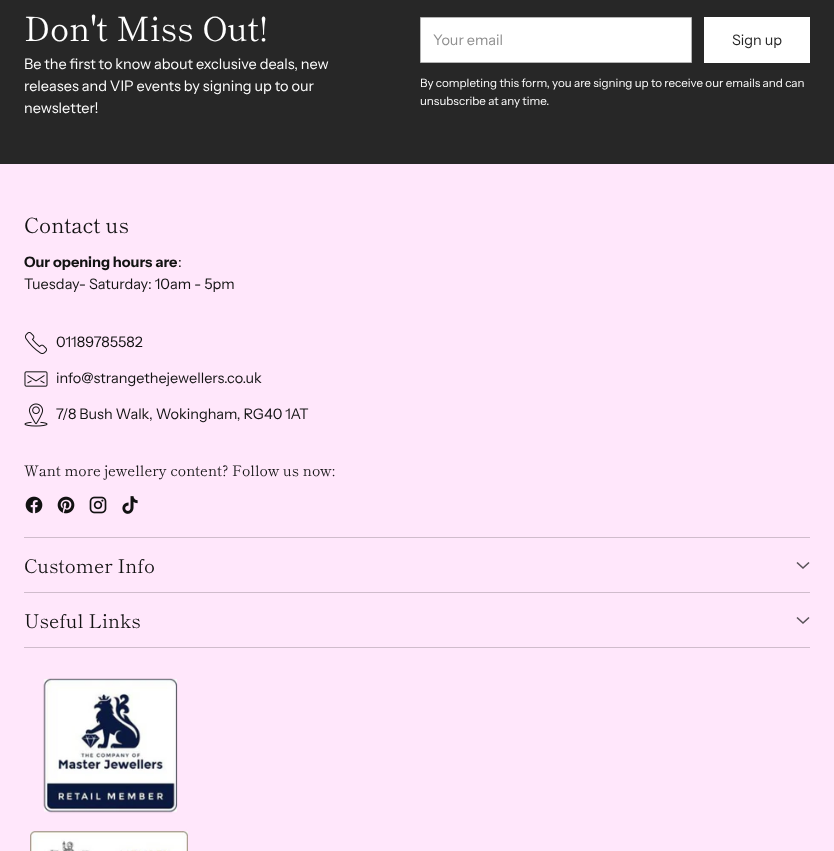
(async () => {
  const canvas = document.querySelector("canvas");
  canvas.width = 834;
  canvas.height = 851;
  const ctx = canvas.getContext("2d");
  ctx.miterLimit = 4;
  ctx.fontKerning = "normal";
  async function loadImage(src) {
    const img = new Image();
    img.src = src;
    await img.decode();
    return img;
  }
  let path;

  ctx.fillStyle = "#ffe7fb";
  ctx.fillRect(0, 0, 834, 851);
  ctx.fillStyle = "#272727";
  ctx.fillRect(0, 0, 834, 164);
  ctx.fillStyle = "#ffffff";
  ctx.beginPath();
  ctx.rect(420.5, 17.5, 271, 45);
  ctx.fill();
  ctx.strokeStyle = "#b4b4b4";
  ctx.stroke();
  ctx.fillRect(704, 17, 106, 46);
  ctx.drawImage(await loadImage("img/1.png"), 25, 332, 22, 22);
  ctx.drawImage(await loadImage("img/2.png"), 24, 371, 24, 16);
  ctx.drawImage(await loadImage("img/3.png"), 24, 403, 24, 24);
  ctx.drawImage(await loadImage("img/4.png"), 25, 496, 18, 18);
  ctx.drawImage(await loadImage("img/5.png"), 57, 496, 18, 18);
  ctx.drawImage(await loadImage("img/6.png"), 89, 496, 18, 18);
  ctx.drawImage(await loadImage("img/7.png"), 122, 496, 16, 18);
  ctx.fillStyle = "#d0bccc";
  ctx.fillRect(24, 537, 786, 1);
  ctx.fillRect(24, 592, 786, 1);
  path = new Path2D("M797 562.5L803 568L809 562.5");
  ctx.strokeStyle = "#595258";
  ctx.lineWidth = 1.6;
  ctx.stroke(path);
  ctx.fillRect(24, 647, 786, 1);
  path = new Path2D("M797 617.5L803 623L809 617.5");
  ctx.stroke(path);
  ctx.drawImage(await loadImage("img/8.png"), 30, 678, 158, 173);
  ctx.font = "33.25px Shippori Mincho";
  ctx.fillStyle = "#ffffff";
  ctx.fillText("Don't Miss Out!", 24, 41);
  ctx.font = "14.5px Instrument Sans";
  for (const [text, x, y] of [
    ["Be the first to know about exclusive deals, new", 24, 69],
    ["releases and VIP events by signing up to our", 24, 91],
    ["newsletter!", 24, 113],
  ]) {
    ctx.fillText(text, x, y);
  }
  ctx.fillStyle = "#8f8f8f";
  ctx.fillText("Your email", 433, 45);
  ctx.fillStyle = "#272727";
  ctx.fillText("Sign up", 732, 45);
  ctx.font = "11.65px Instrument Sans";
  ctx.fillStyle = "#ffffff";
  ctx.fillText("By completing this form, you are signing up to receive our emails and can", 420, 87);
  ctx.fillText("unsubscribe at any time.", 420, 105);
  ctx.font = "21px Shippori Mincho";
  ctx.fillStyle = "#121212";
  ctx.fillText("Contact us", 24, 233);
  ctx.font = "bold 14.5px Instrument Sans";
  ctx.fillText("Our opening hours are", 24, 267);
  ctx.font = "14.5px Instrument Sans";
  for (const [text, x, y] of [
    [":", 178, 267],
    ["Tuesday- Saturday: 10am - 5pm", 24, 289],
    ["01189785582", 56, 347],
    ["info@strangethejewellers.co.uk", 56, 383],
    ["7/8 Bush Walk, Wokingham, RG40 1AT", 56, 419],
  ]) {
    ctx.fillText(text, x, y);
  }
  ctx.font = "14.5px Shippori Mincho";
  ctx.fillText("Want more jewellery content? Follow us now:", 24, 476);
  ctx.font = "19px Shippori Mincho";
  ctx.fillText("Customer Info", 24, 573);
  ctx.fillText("Useful Links", 24, 628);
})();
